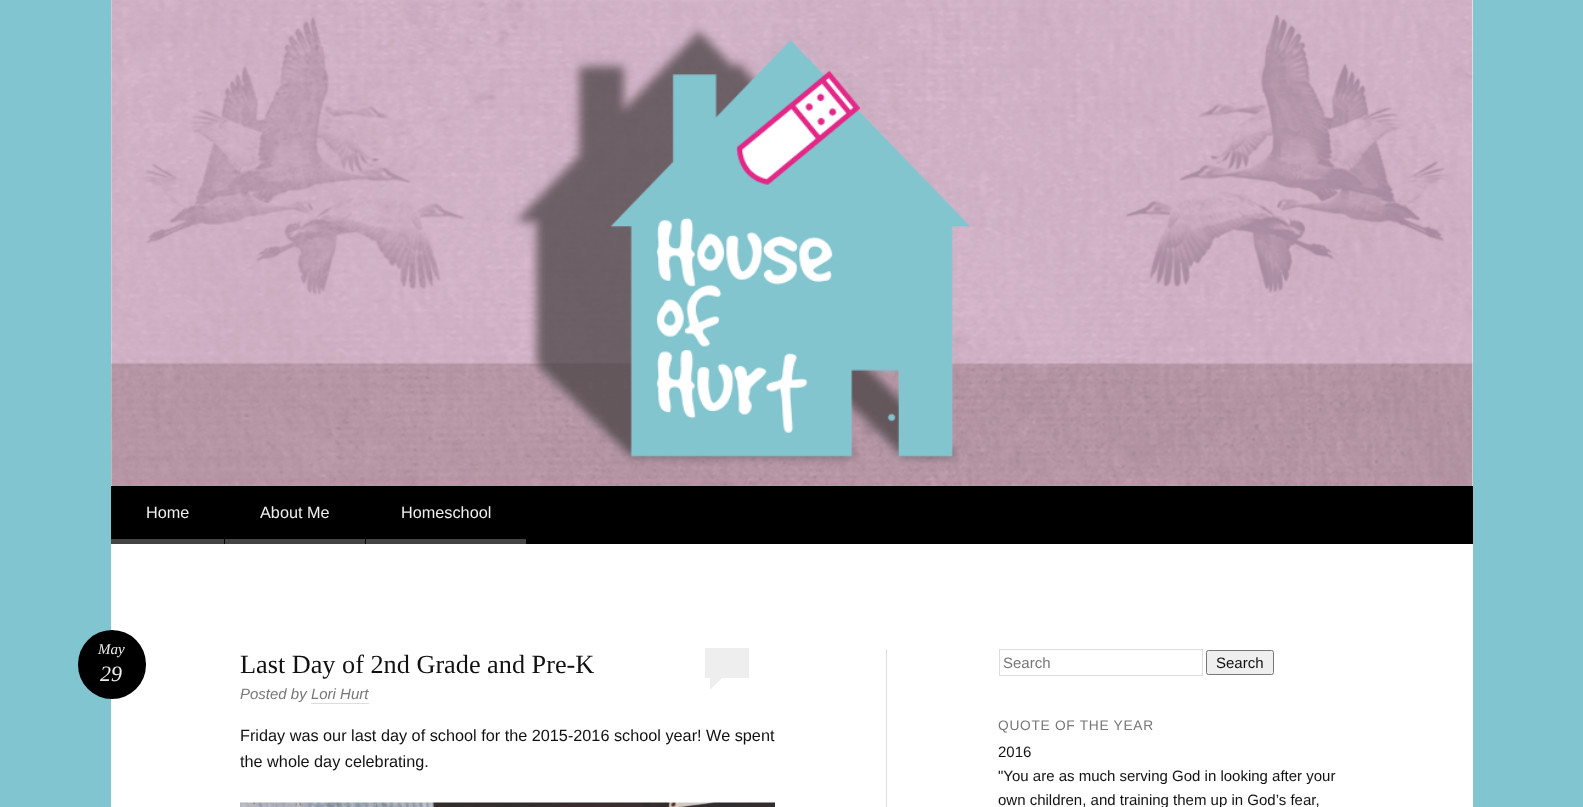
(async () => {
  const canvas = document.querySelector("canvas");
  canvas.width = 1583;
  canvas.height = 807;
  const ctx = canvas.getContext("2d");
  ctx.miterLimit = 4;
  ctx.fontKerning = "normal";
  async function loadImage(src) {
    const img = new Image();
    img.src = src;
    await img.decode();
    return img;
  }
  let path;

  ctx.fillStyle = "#81c5d0";
  ctx.fillRect(0, 0, 1583, 807);
  ctx.fillStyle = "#ffffff";
  ctx.fillRect(111, 0, 1362, 807);
  ctx.drawImage(await loadImage("img/1.png"), 111, 0, 1362, 486);
  for (const [x, y, w, h, color] of [
    [111, 486, 1362, 58, "#000000"],
    [111, 539, 113, 5, "#444444"],
    [225, 539, 140, 5, "#444444"],
    [366, 539, 160, 5, "#444444"],
  ]) {
    ctx.fillStyle = color;
    ctx.fillRect(x, y, w, h);
  }
  ctx.fillStyle = "#000000";
  ctx.beginPath();
  ctx.roundRect(78, 630, 68, 69, 34);
  ctx.fill();
  ctx.fillStyle = "#eeeeee";
  ctx.fillRect(705, 648, 44, 30);
  path = new Path2D("M710 690V677.5H722.5Z");
  ctx.fill(path);
  ctx.fillStyle = "#dddddd";
  ctx.fillRect(311, 703, 58, 1);
  ctx.drawImage(await loadImage("img/2.png"), 240, 802, 535, 5);
  ctx.fillRect(886, 649, 1, 158);
  ctx.strokeStyle = "#dddddd";
  ctx.strokeRect(999.5, 649.5, 203, 26);
  ctx.fillStyle = "#efefef";
  ctx.beginPath();
  ctx.roundRect(1206.5, 650.5, 67, 24, 2);
  ctx.fill();
  ctx.strokeStyle = "#767676";
  ctx.stroke();
  ctx.font = "16.25px Liberation Sans";
  ctx.fillStyle = "#eeeeee";
  for (const [text, x, y] of [
    ["Home", 146, 518],
    ["About Me", 260, 518],
    ["Homeschool", 401, 518],
  ]) {
    ctx.fillText(text, x, y);
  }
  ctx.font = "italic 15px Liberation Serif";
  ctx.fillText("May", 98, 654);
  ctx.font = "italic 22px Liberation Serif";
  ctx.fillText("29", 100, 681);
  ctx.font = "26.25px Liberation Serif";
  ctx.fillStyle = "#111111";
  ctx.fillText("Last Day of 2nd Grade and Pre-K", 240, 673);
  ctx.font = "italic 15px Liberation Sans";
  ctx.fillStyle = "#777777";
  ctx.fillText("Posted by Lori Hurt", 240, 699);
  ctx.font = "16.25px Liberation Sans";
  ctx.fillStyle = "#111111";
  ctx.fillText("Friday was our last day of school for the 2015-2016 school year! We spent", 240, 741);
  ctx.fillText("the whole day celebrating.", 240, 767);
  ctx.font = "15px Liberation Sans";
  ctx.fillStyle = "#777777";
  ctx.fillText("Search", 1003, 668);
  ctx.fillStyle = "#111111";
  ctx.fillText("Search", 1216, 668);
  ctx.letterSpacing = "0.7px";
  ctx.font = "13.75px Liberation Sans";
  ctx.fillStyle = "#777777";
  ctx.fillText("QUOTE OF THE YEAR", 998, 730);
  ctx.letterSpacing = "0px";
  ctx.font = "15px Liberation Sans";
  ctx.fillStyle = "#111111";
  for (const [text, x, y] of [
    ["2016", 998, 757],
    ["\"You are as much serving God in looking after your", 998, 781],
    ["own children, and training them up in God’s fear,", 998, 805],
  ]) {
    ctx.fillText(text, x, y);
  }
})();
